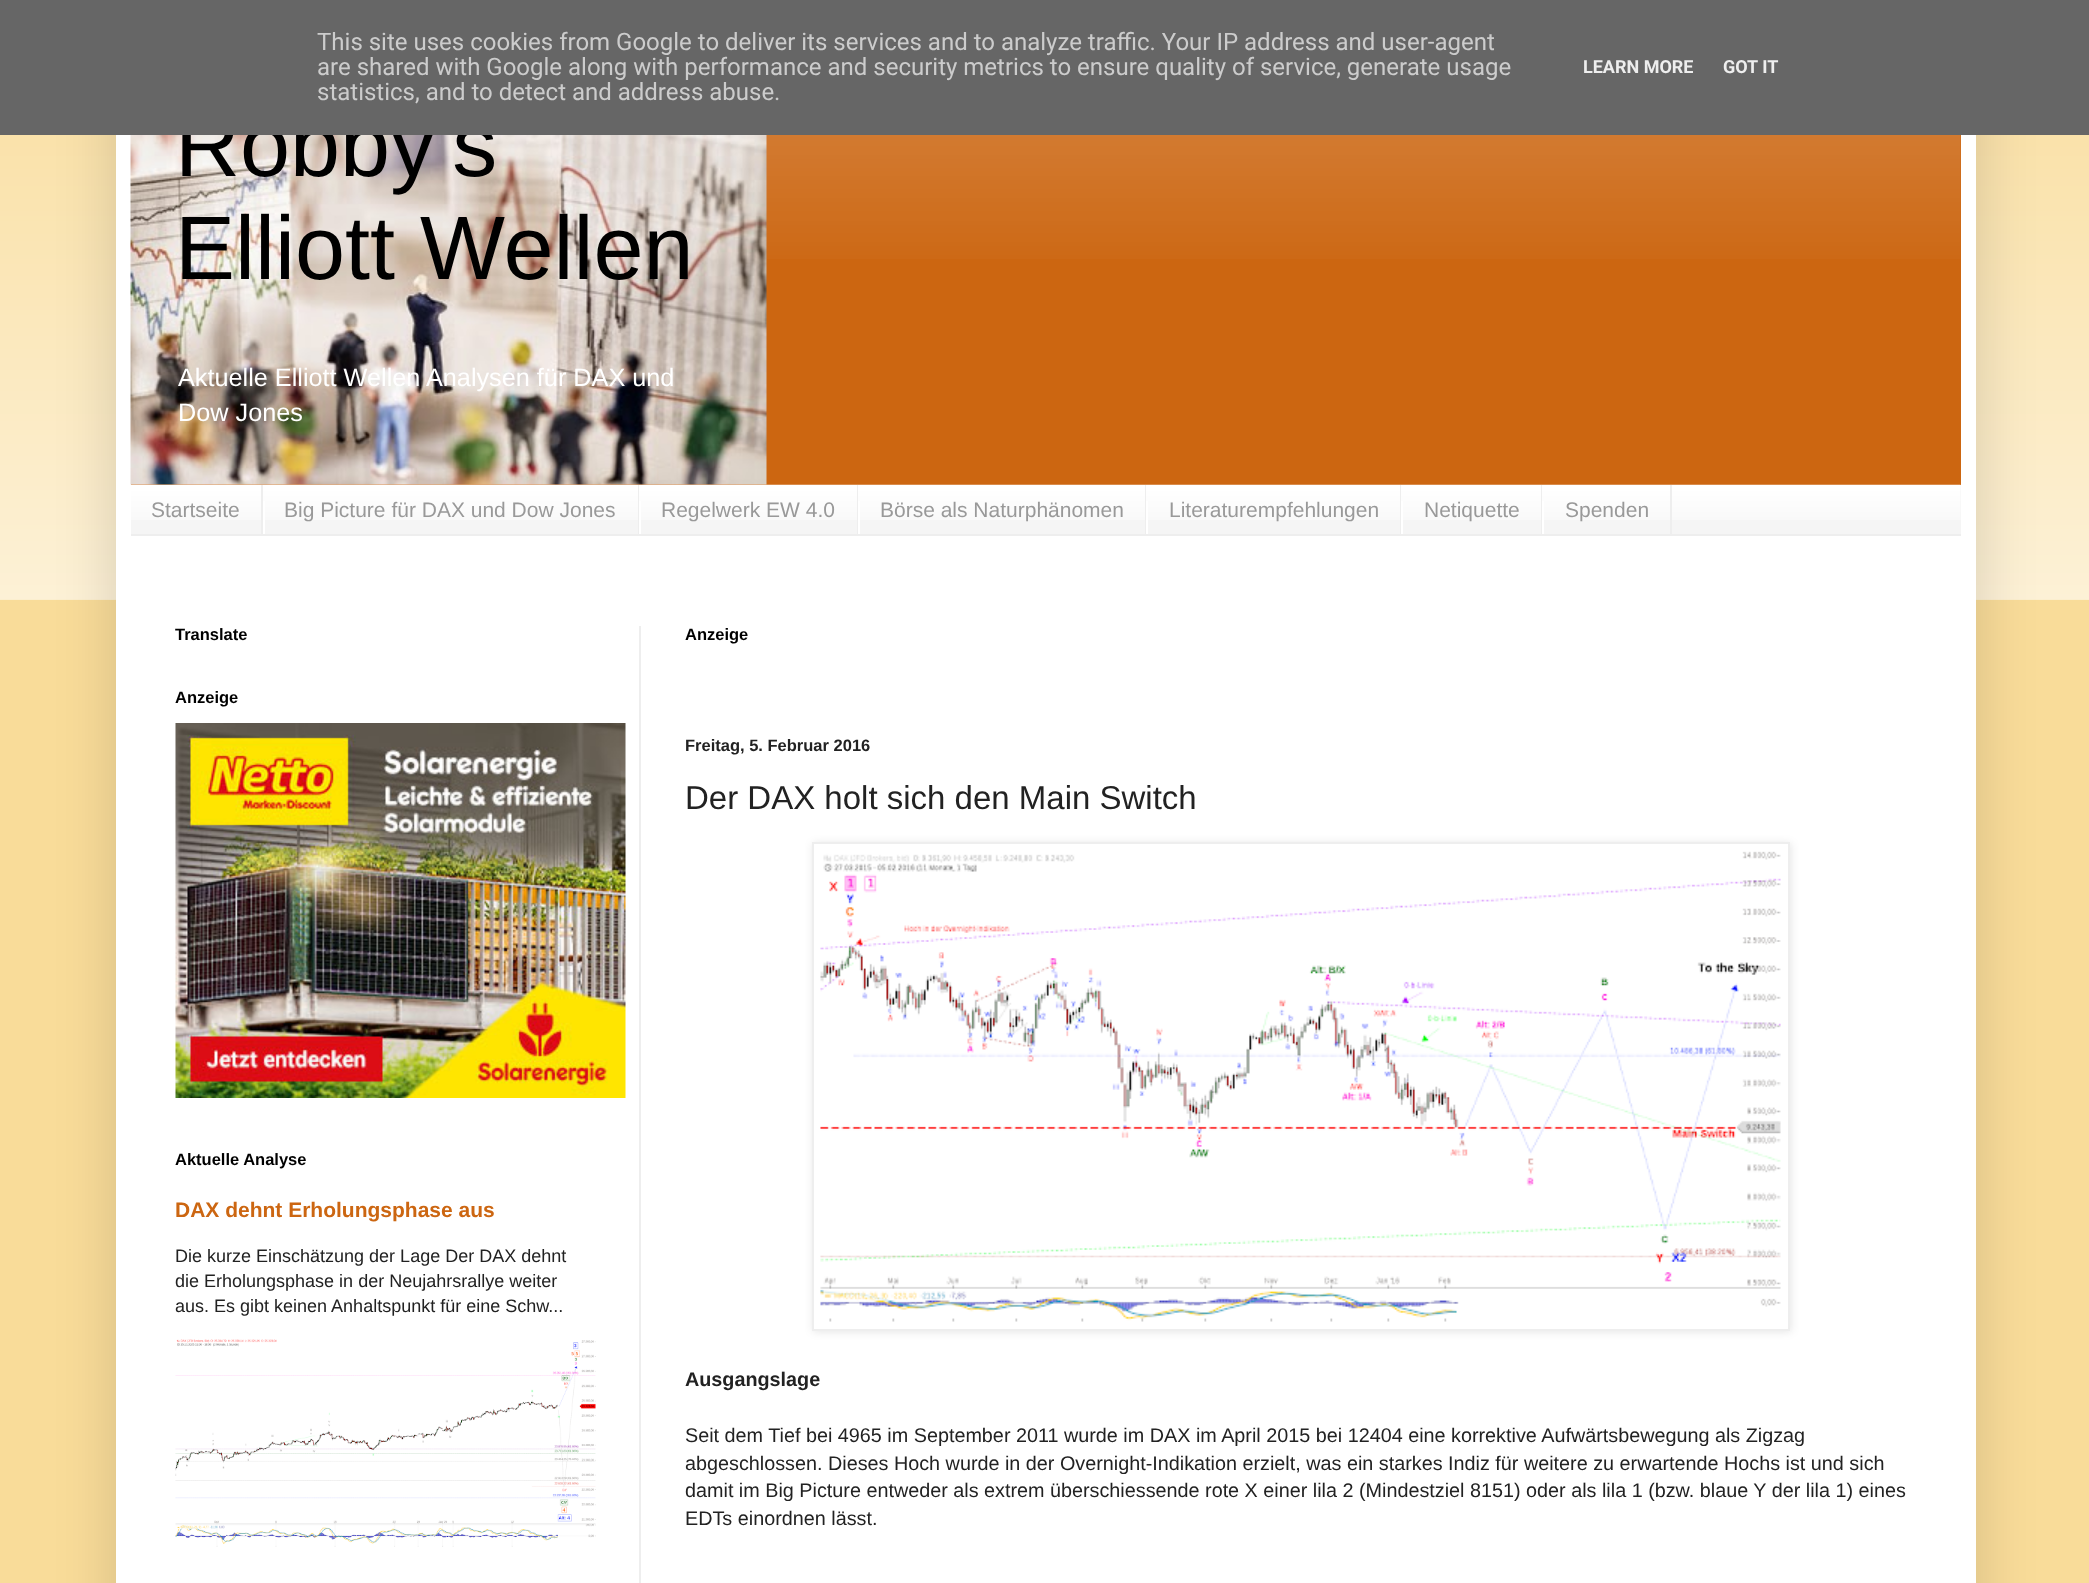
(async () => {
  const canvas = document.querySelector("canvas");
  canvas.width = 2089;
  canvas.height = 1583;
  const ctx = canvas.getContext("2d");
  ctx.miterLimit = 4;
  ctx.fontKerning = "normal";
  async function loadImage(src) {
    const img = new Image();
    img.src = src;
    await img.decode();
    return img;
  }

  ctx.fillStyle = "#f9dc99";
  ctx.fillRect(0, 0, 2089, 1583);
  ctx.drawImage(await loadImage("img/7.png"), 0, 135, 2089, 465);
  ctx.fillStyle = "rgba(0, 0, 0, 0.15)";
  ctx.filter = "blur(30px)";
  ctx.beginPath();
  ctx.rect(116, 45, 1860, 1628);
  ctx.fill();
  ctx.filter = "none";
  ctx.fillStyle = "#ffffff";
  ctx.fillRect(116, 135, 1860, 1448);
  ctx.fillStyle = "#cc6611";
  ctx.fillRect(131, 135, 1830, 350);
  ctx.drawImage(await loadImage("img/1.png"), 766, 135, 1195, 124);
  ctx.drawImage(await loadImage("img/2.png"), 130, 135, 637, 350);
  ctx.fillStyle = "#f5f5f5";
  ctx.fillRect(131, 485, 1830, 49);
  ctx.drawImage(await loadImage("img/3.png"), 131, 484, 1830, 36);
  for (const [x, y, w, h, color] of [
    [131, 534, 1830, 2, "#eeeeee"],
    [261, 485, 2, 49, "#eeeeee"],
    [638, 485, 1, 49, "#eeeeee"],
    [263, 501, 2, 33, "#ffffff"],
    [857, 485, 1, 49, "#eeeeee"],
    [639, 501, 2, 33, "#ffffff"],
    [1145, 485, 1, 49, "#eeeeee"],
    [858, 501, 2, 33, "#ffffff"],
    [1400, 485, 1, 49, "#eeeeee"],
    [1146, 501, 2, 33, "#ffffff"],
    [1541, 485, 1, 49, "#eeeeee"],
    [1401, 501, 2, 33, "#ffffff"],
    [1670, 485, 2, 49, "#eeeeee"],
    [1542, 501, 2, 33, "#ffffff"],
    [639, 626, 2, 957, "#eeeeee"],
  ]) {
    ctx.fillStyle = color;
    ctx.fillRect(x, y, w, h);
  }
  ctx.drawImage(await loadImage("img/4.png"), 175, 723, 451, 375);
  ctx.drawImage(await loadImage("img/5.png"), 175, 1339, 421, 208);
  ctx.fillStyle = "rgba(0, 0, 0, 0.1)";
  ctx.filter = "blur(4px)";
  ctx.beginPath();
  ctx.rect(813, 843, 978, 489);
  ctx.fill();
  ctx.filter = "none";
  ctx.fillStyle = "#ffffff";
  ctx.beginPath();
  ctx.rect(813, 843, 976, 487);
  ctx.fill();
  ctx.strokeStyle = "#eeeeee";
  ctx.lineWidth = 2;
  ctx.stroke();
  ctx.drawImage(await loadImage("img/6.png"), 820, 851, 961, 471);
  ctx.font = "90px Liberation Sans";
  ctx.fillStyle = "#000000";
  ctx.fillText("Robby's", 175, 176);
  ctx.fillStyle = "#666666";
  ctx.fillRect(0, 0, 2089, 135);
  ctx.font = "bold 18px Roboto";
  ctx.fillStyle = "#eeeeee";
  ctx.fillText("GOT IT", 1723, 73);
  ctx.fillText("LEARN MORE", 1583, 73);
  ctx.font = "24px Roboto";
  ctx.fillStyle = "#cccccc";
  for (const [text, x, y] of [
    ["statistics, and to detect and address abuse.", 317, 100],
    ["are shared with Google along with performance and security metrics to ensure quality of service, generate usage", 317, 75],
    ["This site uses cookies from Google to deliver its services and to analyze traffic. Your IP address and user-agent", 317, 50],
  ]) {
    ctx.fillText(text, x, y);
  }
  ctx.font = "90px Liberation Sans";
  ctx.fillStyle = "#000000";
  ctx.fillText("Elliott Wellen", 175, 279);
  ctx.font = "25.25px Liberation Sans";
  ctx.fillStyle = "#ffffff";
  ctx.fillText("Aktuelle Elliott Wellen Analysen für DAX und", 178, 386);
  ctx.fillText("Dow Jones", 178, 421);
  ctx.font = "21px Liberation Sans";
  ctx.fillStyle = "#999999";
  for (const [text, x, y] of [
    ["Startseite", 151, 517],
    ["Big Picture für DAX und Dow Jones", 284, 517],
    ["Regelwerk EW 4.0", 661, 517],
    ["Börse als Naturphänomen", 880, 517],
    ["Literaturempfehlungen", 1169, 517],
    ["Netiquette", 1424, 517],
    ["Spenden", 1565, 517],
  ]) {
    ctx.fillText(text, x, y);
  }
  ctx.font = "bold 16.5px Liberation Sans";
  ctx.fillStyle = "#000000";
  for (const [text, x, y] of [
    ["Translate", 175, 640],
    ["Anzeige", 175, 703],
    ["Aktuelle Analyse", 175, 1165],
  ]) {
    ctx.fillText(text, x, y);
  }
  ctx.font = "bold 21px Liberation Sans";
  ctx.fillStyle = "#cc6611";
  ctx.fillText("DAX dehnt Erholungsphase aus", 175, 1217);
  ctx.font = "18px Liberation Sans";
  ctx.fillStyle = "#222222";
  for (const [text, x, y] of [
    ["Die kurze Einschätzung der Lage Der DAX dehnt", 175, 1262],
    ["die Erholungsphase in der Neujahrsrallye weiter", 175, 1287],
    ["aus. Es gibt keinen Anhaltspunkt für eine Schw...", 175, 1312],
  ]) {
    ctx.fillText(text, x, y);
  }
  ctx.font = "bold 16.5px Liberation Sans";
  ctx.fillStyle = "#000000";
  ctx.fillText("Anzeige", 685, 640);
  ctx.fillStyle = "#222222";
  ctx.fillText("Freitag, 5. Februar 2016", 685, 751);
  ctx.font = "33px Liberation Sans";
  ctx.fillText("Der DAX holt sich den Main Switch", 685, 809);
  ctx.font = "bold 19.8px Liberation Sans";
  ctx.fillText("Ausgangslage", 685, 1386);
  ctx.font = "19.8px Liberation Sans";
  for (const [text, x, y] of [
    ["Seit dem Tief bei 4965 im September 2011 wurde im DAX im April 2015 bei 12404 eine korrektive Aufwärtsbewegung als Zigzag", 685, 1442],
    ["abgeschlossen. Dieses Hoch wurde in der Overnight-Indikation erzielt, was ein starkes Indiz für weitere zu erwartende Hochs ist und sich", 685, 1470],
    ["damit im Big Picture entweder als extrem überschiessende rote X einer lila 2 (Mindestziel 8151) oder als lila 1 (bzw. blaue Y der lila 1) eines", 685, 1497],
    ["EDTs einordnen lässt.", 685, 1525],
  ]) {
    ctx.fillText(text, x, y);
  }
})();
